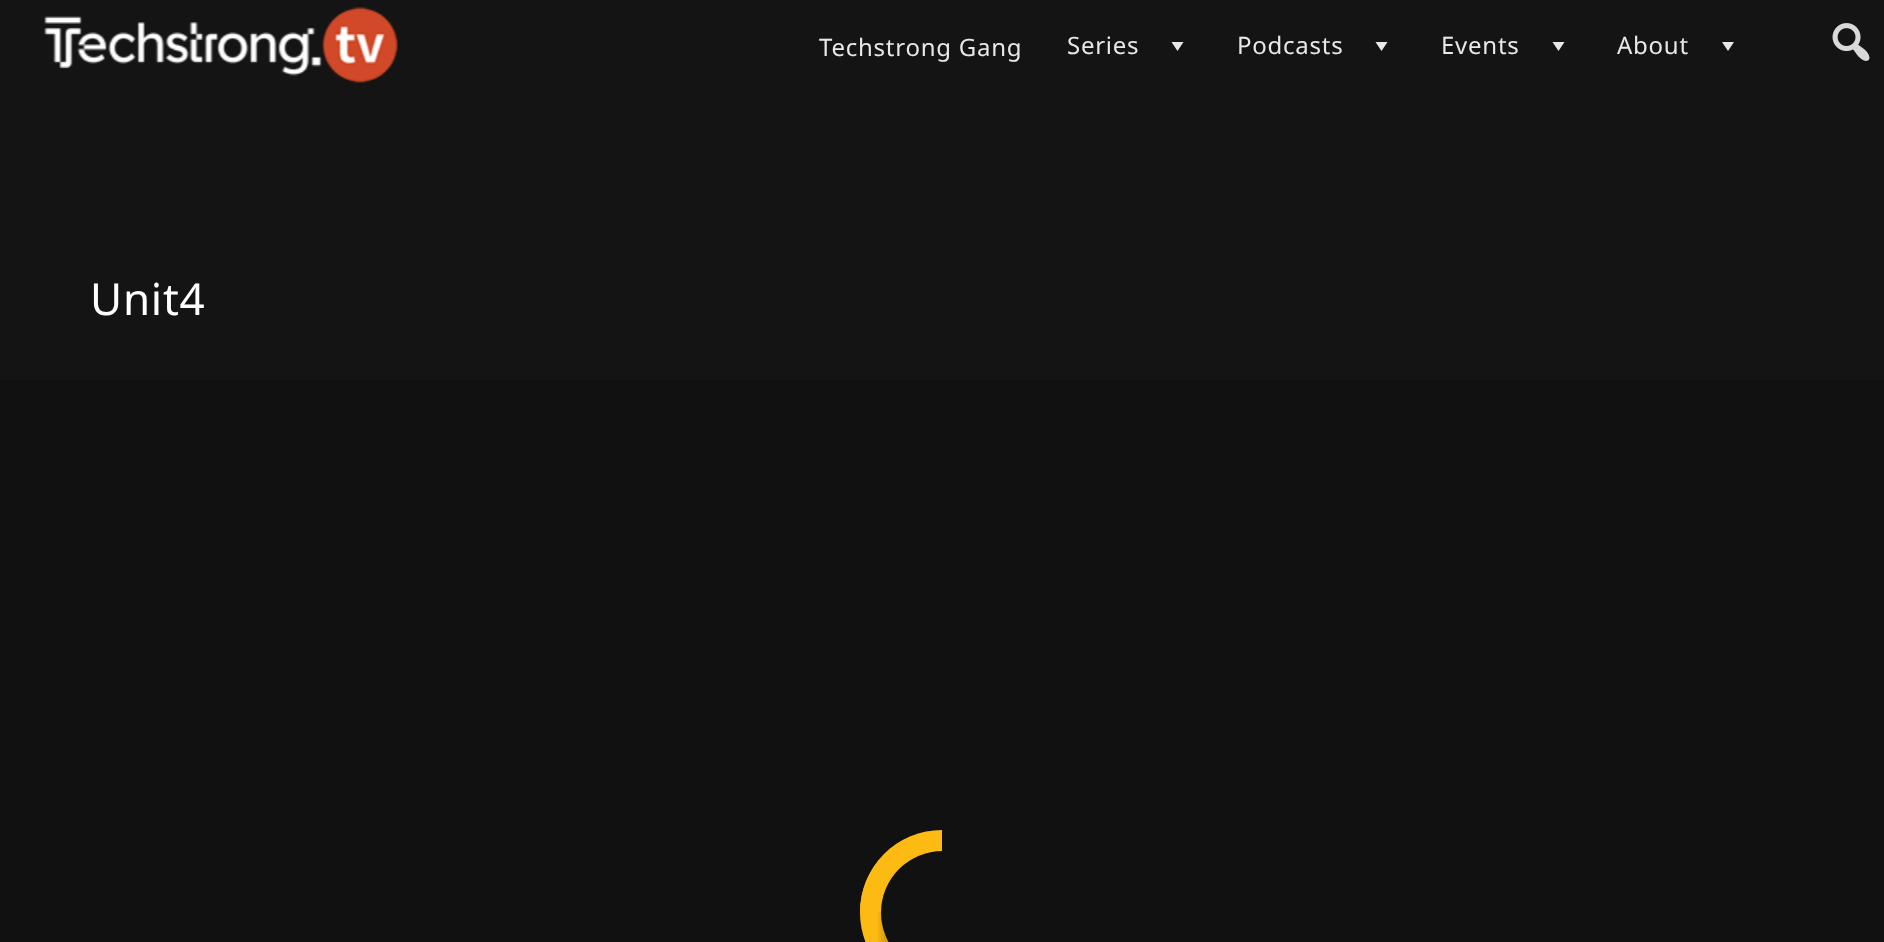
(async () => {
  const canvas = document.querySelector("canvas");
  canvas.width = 1884;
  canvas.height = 942;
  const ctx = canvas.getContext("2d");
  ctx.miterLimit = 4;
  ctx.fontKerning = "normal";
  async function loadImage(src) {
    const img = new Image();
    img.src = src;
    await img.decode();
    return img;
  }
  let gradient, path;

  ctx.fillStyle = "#141414";
  ctx.fillRect(0, 0, 1884, 942);
  ctx.drawImage(await loadImage("img/1.png"), 44, 7, 354, 76);
  ctx.fillStyle = "#e8e8e8";
  path = new Path2D("M1183.5 42L1177.5 51L1171.5 42Z");
  ctx.fill(path);
  path = new Path2D("M1387.5 42L1381.5 51L1375.5 42Z");
  ctx.fill(path);
  path = new Path2D("M1564.5 42L1558.5 51L1552.5 42Z");
  ctx.fill(path);
  path = new Path2D("M1734 42L1728 51L1722 42Z");
  ctx.fill(path);
  ctx.drawImage(await loadImage("img/2.png"), 1832, 23, 38, 38);
  ctx.fillStyle = "#111111";
  ctx.fillRect(0, 380, 1884, 562);
  gradient = ctx.createLinearGradient(860, 912, 1025, 912);
  gradient.addColorStop(0.1, "#fdba13");
  gradient.addColorStop(0.42, "#111111");
  ctx.fillStyle = gradient;
  ctx.beginPath();
  ctx.arc(942.5, 912.5, 82.5, 0, Math.PI * 2);
  ctx.fill();
  ctx.fillStyle = "#fdba13";
  ctx.beginPath();
  ctx.roundRect(860, 830, 82, 82, [82, 0, 0, 0]);
  ctx.fill();
  ctx.fillStyle = "#111111";
  ctx.beginPath();
  ctx.arc(942.5, 912.5, 61.5, 0, Math.PI * 2);
  ctx.fill();
  ctx.letterSpacing = "0.75px";
  ctx.font = "24px Noto Sans";
  ctx.fillStyle = "#e8e8e8";
  for (const [text, x, y] of [
    ["Techstrong Gang", 819, 56],
    ["Series", 1067, 54],
    ["Podcasts", 1237, 54],
    ["Events", 1441, 54],
    ["About", 1617, 54],
  ]) {
    ctx.fillText(text, x, y);
  }
  ctx.font = "44px Noto Sans";
  ctx.fillStyle = "#ffffff";
  ctx.fillText("Unit4", 90, 315);
})();
